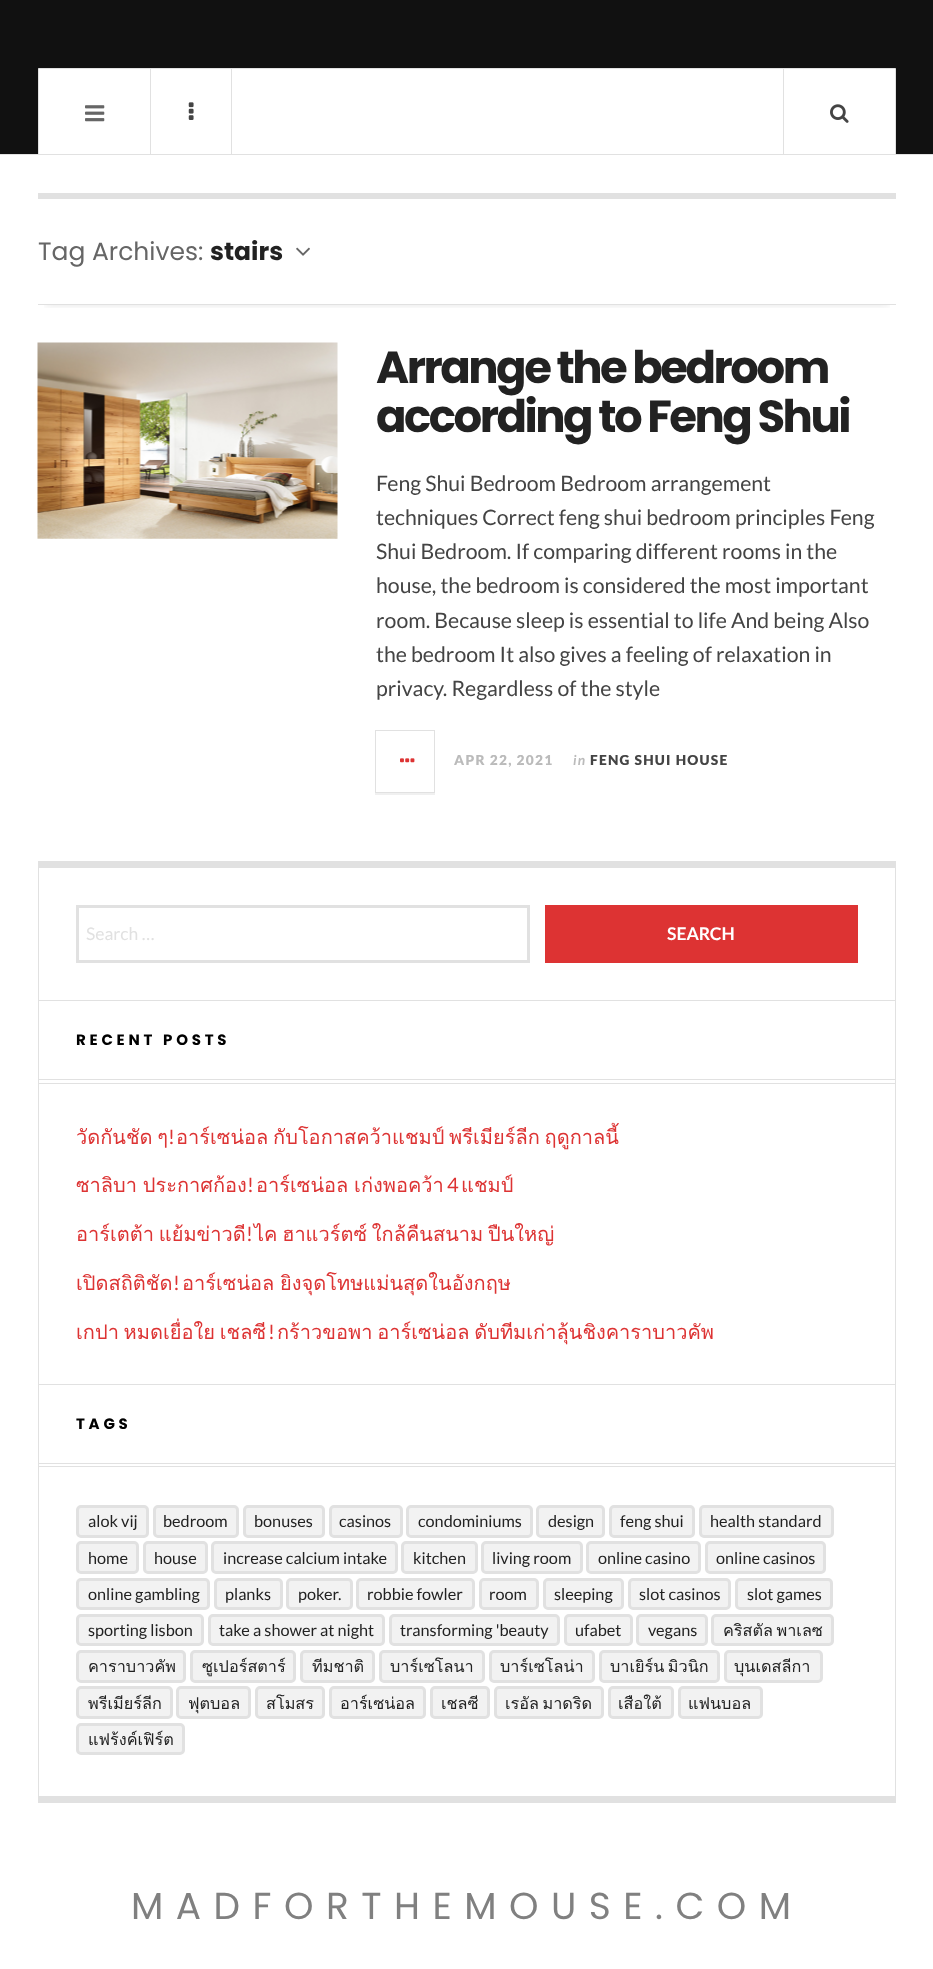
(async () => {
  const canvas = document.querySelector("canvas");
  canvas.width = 933;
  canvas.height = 1969;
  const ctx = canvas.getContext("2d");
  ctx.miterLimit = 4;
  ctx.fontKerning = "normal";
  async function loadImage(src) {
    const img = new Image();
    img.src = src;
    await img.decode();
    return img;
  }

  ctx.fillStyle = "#ffffff";
  ctx.fillRect(0, 0, 933, 1969);
  ctx.fillStyle = "#111111";
  ctx.fillRect(0, 0, 933, 154);
  ctx.fillStyle = "#e1e1e1";
  ctx.fillRect(0, 154, 933, 1);
  ctx.fillStyle = "#ffffff";
  ctx.beginPath();
  ctx.rect(38.5, 68.5, 857, 86);
  ctx.fill();
  ctx.strokeStyle = "#e1e1e1";
  ctx.stroke();
  ctx.fillStyle = "#e1e1e1";
  ctx.fillRect(150, 69, 1, 85);
  ctx.drawImage(await loadImage("img/1.png"), 85, 105, 20, 17);
  ctx.fillRect(231, 69, 1, 85);
  ctx.drawImage(await loadImage("img/2.png"), 188, 102, 6, 18);
  ctx.fillRect(783, 69, 1, 85);
  ctx.drawImage(await loadImage("img/3.png"), 830, 104, 19, 19);
  ctx.fillRect(38, 193, 858, 6);
  ctx.fillRect(38, 1796, 858, 7);
  ctx.save();
  ctx.beginPath();
  ctx.rect(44, 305, 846, 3);
  ctx.clip();
  ctx.fillStyle = "rgba(0, 0, 0, 0.1)";
  ctx.filter = "blur(4px)";
  ctx.beginPath();
  ctx.rect(45, 214, 844, 91);
  ctx.fill();
  ctx.filter = "none";
  ctx.restore();
  ctx.fillRect(38, 304, 858, 1);
  ctx.drawImage(await loadImage("img/4.png"), 296, 247, 14, 9);
  ctx.drawImage(await loadImage("img/5.png"), 37, 342, 301, 197);
  ctx.fillStyle = "#f0f0f0";
  ctx.fillRect(375, 793, 60, 2);
  ctx.strokeRect(375.5, 730.5, 59, 62);
  ctx.drawImage(await loadImage("img/6.png"), 400, 758, 15, 5);
  for (const [x, y, w, h, color] of [
    [38, 861, 858, 7, "#e1e1e1"],
    [895, 861, 1, 935, "#e1e1e1"],
    [38, 861, 1, 935, "#e1e1e1"],
  ]) {
    ctx.fillStyle = color;
    ctx.fillRect(x, y, w, h);
  }
  ctx.lineWidth = 3;
  ctx.strokeRect(77.5, 906.5, 451, 55);
  for (const [x, y, w, h, color] of [
    [545, 905, 313, 58, "#dd3333"],
    [39, 1000, 856, 1, "#e1e1e1"],
    [39, 1079, 856, 1, "#e1e1e1"],
    [39, 1083, 856, 1, "#e1e1e1"],
    [39, 1384, 856, 1, "#e1e1e1"],
    [39, 1463, 856, 1, "#e1e1e1"],
    [39, 1466, 856, 1, "#e1e1e1"],
  ]) {
    ctx.fillStyle = color;
    ctx.fillRect(x, y, w, h);
  }
  ctx.fillStyle = "#f2f2f2";
  ctx.beginPath();
  ctx.roundRect(77.5, 1506.5, 70, 30, 3.5);
  ctx.fill();
  ctx.stroke();
  ctx.beginPath();
  ctx.roundRect(154.5, 1506.5, 83, 30, 3.5);
  ctx.fill();
  ctx.stroke();
  ctx.beginPath();
  ctx.roundRect(244.5, 1506.5, 79, 30, 3.5);
  ctx.fill();
  ctx.stroke();
  ctx.beginPath();
  ctx.roundRect(330.5, 1506.5, 71, 30, 3.5);
  ctx.fill();
  ctx.stroke();
  ctx.beginPath();
  ctx.roundRect(407.5, 1506.5, 124, 30, 3.5);
  ctx.fill();
  ctx.stroke();
  ctx.beginPath();
  ctx.roundRect(537.5, 1506.5, 66, 30, 3.5);
  ctx.fill();
  ctx.stroke();
  ctx.beginPath();
  ctx.roundRect(610.5, 1506.5, 83, 30, 3.5);
  ctx.fill();
  ctx.stroke();
  ctx.beginPath();
  ctx.roundRect(700.5, 1506.5, 132, 30, 3.5);
  ctx.fill();
  ctx.stroke();
  ctx.beginPath();
  ctx.roundRect(77.5, 1542.5, 60, 30, 3.5);
  ctx.fill();
  ctx.stroke();
  ctx.beginPath();
  ctx.roundRect(144.5, 1542.5, 62, 30, 3.5);
  ctx.fill();
  ctx.stroke();
  ctx.beginPath();
  ctx.roundRect(212.5, 1542.5, 184, 30, 3.5);
  ctx.fill();
  ctx.stroke();
  ctx.beginPath();
  ctx.roundRect(402.5, 1542.5, 74, 30, 3.5);
  ctx.fill();
  ctx.stroke();
  ctx.beginPath();
  ctx.roundRect(482.5, 1542.5, 99, 30, 3.5);
  ctx.fill();
  ctx.stroke();
  ctx.beginPath();
  ctx.roundRect(587.5, 1542.5, 112, 30, 3.5);
  ctx.fill();
  ctx.stroke();
  ctx.beginPath();
  ctx.roundRect(706.5, 1542.5, 118, 30, 3.5);
  ctx.fill();
  ctx.stroke();
  ctx.beginPath();
  ctx.roundRect(77.5, 1579.5, 131, 29, 3.5);
  ctx.fill();
  ctx.stroke();
  ctx.beginPath();
  ctx.roundRect(215.5, 1579.5, 66, 29, 3.5);
  ctx.fill();
  ctx.stroke();
  ctx.beginPath();
  ctx.roundRect(287.5, 1579.5, 64, 29, 3.5);
  ctx.fill();
  ctx.stroke();
  ctx.beginPath();
  ctx.roundRect(357.5, 1579.5, 116, 29, 3.5);
  ctx.fill();
  ctx.stroke();
  ctx.beginPath();
  ctx.roundRect(480.5, 1579.5, 57, 29, 3.5);
  ctx.fill();
  ctx.stroke();
  ctx.beginPath();
  ctx.roundRect(544.5, 1579.5, 78, 29, 3.5);
  ctx.fill();
  ctx.stroke();
  ctx.beginPath();
  ctx.roundRect(629.5, 1579.5, 100, 29, 3.5);
  ctx.fill();
  ctx.stroke();
  ctx.beginPath();
  ctx.roundRect(736.5, 1579.5, 95, 29, 3.5);
  ctx.fill();
  ctx.stroke();
  ctx.beginPath();
  ctx.roundRect(77.5, 1615.5, 125, 29, 3.5);
  ctx.fill();
  ctx.stroke();
  ctx.beginPath();
  ctx.roundRect(209.5, 1615.5, 174, 29, 3.5);
  ctx.fill();
  ctx.stroke();
  ctx.beginPath();
  ctx.roundRect(390.5, 1615.5, 168, 29, 3.5);
  ctx.fill();
  ctx.stroke();
  ctx.beginPath();
  ctx.roundRect(565.5, 1615.5, 66, 29, 3.5);
  ctx.fill();
  ctx.stroke();
  ctx.beginPath();
  ctx.roundRect(637.5, 1615.5, 69, 29, 3.5);
  ctx.fill();
  ctx.stroke();
  ctx.beginPath();
  ctx.roundRect(712.5, 1615.5, 120, 29, 3.5);
  ctx.fill();
  ctx.stroke();
  ctx.beginPath();
  ctx.roundRect(77.5, 1651.5, 107, 30, 3.5);
  ctx.fill();
  ctx.stroke();
  ctx.beginPath();
  ctx.roundRect(191.5, 1651.5, 103, 30, 3.5);
  ctx.fill();
  ctx.stroke();
  ctx.beginPath();
  ctx.roundRect(301.5, 1651.5, 72, 30, 3.5);
  ctx.fill();
  ctx.stroke();
  ctx.beginPath();
  ctx.roundRect(380.5, 1651.5, 103, 30, 3.5);
  ctx.fill();
  ctx.stroke();
  ctx.beginPath();
  ctx.roundRect(490.5, 1651.5, 103, 30, 3.5);
  ctx.fill();
  ctx.stroke();
  ctx.beginPath();
  ctx.roundRect(600.5, 1651.5, 118, 30, 3.5);
  ctx.fill();
  ctx.stroke();
  ctx.beginPath();
  ctx.roundRect(725.5, 1651.5, 96, 30, 3.5);
  ctx.fill();
  ctx.stroke();
  ctx.beginPath();
  ctx.roundRect(77.5, 1687.5, 94, 30, 3.5);
  ctx.fill();
  ctx.stroke();
  ctx.beginPath();
  ctx.roundRect(177.5, 1687.5, 72, 30, 3.5);
  ctx.fill();
  ctx.stroke();
  ctx.beginPath();
  ctx.roundRect(256.5, 1687.5, 67, 30, 3.5);
  ctx.fill();
  ctx.stroke();
  ctx.beginPath();
  ctx.roundRect(330.5, 1687.5, 94, 30, 3.5);
  ctx.fill();
  ctx.stroke();
  ctx.beginPath();
  ctx.roundRect(431.5, 1687.5, 57, 30, 3.5);
  ctx.fill();
  ctx.stroke();
  ctx.beginPath();
  ctx.roundRect(495.5, 1687.5, 107, 30, 3.5);
  ctx.fill();
  ctx.stroke();
  ctx.beginPath();
  ctx.roundRect(609.5, 1687.5, 63, 30, 3.5);
  ctx.fill();
  ctx.stroke();
  ctx.beginPath();
  ctx.roundRect(679.5, 1687.5, 82, 30, 3.5);
  ctx.fill();
  ctx.stroke();
  ctx.beginPath();
  ctx.roundRect(77.5, 1724.5, 106, 29, 3.5);
  ctx.fill();
  ctx.stroke();
  ctx.font = "25px Poppins";
  ctx.fillStyle = "#666666";
  ctx.fillText("Tag Archives:", 38, 260);
  ctx.font = "bold 25px Poppins";
  ctx.fillStyle = "#222222";
  ctx.fillText("stairs", 210, 260);
  ctx.letterSpacing = "-2.5px";
  ctx.font = "bold 45px Poppins";
  ctx.fillText("Arrange the bedroom", 376, 383);
  ctx.fillText("according to Feng Shui", 376, 432);
  ctx.letterSpacing = "0px";
  ctx.font = "21.25px Lato";
  ctx.fillStyle = "#444444";
  for (const [text, x, y] of [
    ["Feng Shui Bedroom Bedroom arrangement", 376, 491],
    ["techniques Correct feng shui bedroom principles Feng", 376, 525],
    ["Shui Bedroom. If comparing different rooms in the", 376, 559],
    ["house, the bedroom is considered the most important", 376, 593],
    ["room. Because sleep is essential to life And being Also", 376, 628],
    ["the bedroom It also gives a feeling of relaxation in", 376, 662],
    ["privacy. Regardless of the style", 376, 696],
  ]) {
    ctx.fillText(text, x, y);
  }
  ctx.letterSpacing = "1.25px";
  ctx.font = "900 13.75px Lato";
  ctx.fillStyle = "#bbbbbb";
  ctx.fillText("APR 22, 2021", 454, 765);
  ctx.font = "italic bold 13.75px Lato";
  ctx.fillText("in", 573, 765);
  ctx.font = "900 13.75px Lato";
  ctx.fillStyle = "#444444";
  ctx.fillText("FENG SHUI HOUSE", 590, 765);
  ctx.letterSpacing = "0px";
  ctx.font = "17.5px Lato";
  ctx.fillStyle = "#e1e1e1";
  ctx.fillText("Search …", 86, 940);
  ctx.font = "bold 17.5px Lato";
  ctx.fillStyle = "#ffffff";
  ctx.fillText("SEARCH", 667, 940);
  ctx.letterSpacing = "3.75px";
  ctx.font = "bold 15px Poppins";
  ctx.fillStyle = "#000000";
  ctx.fillText("RECENT POSTS", 76, 1045);
  ctx.letterSpacing = "0px";
  ctx.wordSpacing = "-2px";
  ctx.font = "20px Loma";
  ctx.fillStyle = "#dd3333";
  ctx.fillText("วัดกันชัด ๆ", 76, 1144);
  ctx.wordSpacing = "0px";
  ctx.font = "20px Lato";
  ctx.fillText("!", 168, 1144);
  ctx.wordSpacing = "-2px";
  ctx.font = "20px Loma";
  ctx.fillText("อาร์เซน่อล กับโอกาสคว้าแชมป์ พรีเมียร์ลีก ฤดูกาลนี้", 176, 1144);
  ctx.wordSpacing = "-1px";
  ctx.fillText("ซาลิบา ประกาศก้อง", 76, 1192);
  ctx.wordSpacing = "0px";
  ctx.font = "20px Lato";
  ctx.fillText("!", 247, 1192);
  ctx.wordSpacing = "-1px";
  ctx.font = "20px Loma";
  ctx.fillText("อาร์เซน่อล เก่งพอคว้า", 256, 1192);
  ctx.wordSpacing = "0px";
  ctx.font = "20px Lato";
  ctx.fillText("4", 447, 1192);
  ctx.font = "20px Loma";
  ctx.fillText("แชมป์", 461, 1192);
  ctx.wordSpacing = "-2px";
  ctx.fillText("อาร์เตต้า แย้มข่าวดี", 76, 1241);
  ctx.wordSpacing = "0px";
  ctx.font = "20px Lato";
  ctx.fillText("!", 246, 1241);
  ctx.wordSpacing = "-2px";
  ctx.font = "20px Loma";
  ctx.fillText("ไค ฮาแวร์ตซ์ ใกล้คืนสนาม ปืนใหญ่", 254, 1241);
  ctx.wordSpacing = "0px";
  ctx.fillText("เปิดสถิติชัด", 76, 1290);
  ctx.font = "20px Lato";
  ctx.fillText("!", 173, 1290);
  ctx.wordSpacing = "-1px";
  ctx.font = "20px Loma";
  ctx.fillText("อาร์เซน่อล ยิงจุดโทษแม่นสุดในอังกฤษ", 182, 1290);
  ctx.wordSpacing = "-2px";
  ctx.fillText("เกปา หมดเยื่อใย เชลซี", 76, 1339);
  ctx.wordSpacing = "0px";
  ctx.font = "20px Lato";
  ctx.fillText("!", 268, 1339);
  ctx.wordSpacing = "-2px";
  ctx.font = "20px Loma";
  ctx.fillText("กร้าวขอพา อาร์เซน่อล ดับทีมเก่าลุ้นชิงคาราบาวคัพ", 277, 1339);
  ctx.letterSpacing = "3.75px";
  ctx.wordSpacing = "0px";
  ctx.font = "bold 15px Poppins";
  ctx.fillStyle = "#000000";
  ctx.fillText("TAGS", 76, 1429);
  ctx.letterSpacing = "0px";
  ctx.font = "16.25px Lato";
  ctx.fillStyle = "#222222";
  for (const [text, x, y] of [
    ["alok vij", 88, 1527],
    ["bedroom", 163, 1527],
    ["bonuses", 254, 1527],
    ["casinos", 339, 1527],
    ["condominiums", 418, 1527],
    ["design", 548, 1527],
    ["feng shui", 620, 1527],
    ["health standard", 710, 1527],
    ["home", 88, 1564],
    ["house", 154, 1564],
    ["increase calcium intake", 223, 1564],
    ["kitchen", 413, 1564],
    ["living room", 492, 1564],
    ["online casino", 598, 1564],
    ["online casinos", 716, 1564],
    ["online gambling", 88, 1600],
    ["planks", 225, 1600],
    ["poker.", 298, 1600],
    ["robbie fowler", 367, 1600],
    ["room", 489, 1600],
    ["sleeping", 554, 1600],
    ["slot casinos", 639, 1600],
    ["slot games", 747, 1600],
    ["sporting lisbon", 88, 1636],
    ["take a shower at night", 219, 1636],
    ["transforming 'beauty", 400, 1636],
    ["ufabet", 575, 1636],
    ["vegans", 648, 1636],
  ]) {
    ctx.fillText(text, x, y);
  }
  ctx.wordSpacing = "-2px";
  ctx.font = "16.25px Loma";
  ctx.fillText("คริสตัล พาเลซ", 723, 1636);
  ctx.wordSpacing = "0px";
  for (const [text, x, y] of [
    ["คาราบาวคัพ", 88, 1672],
    ["ซูเปอร์สตาร์", 202, 1672],
    ["ทีมชาติ", 312, 1672],
    ["บาร์เซโลนา", 390, 1672],
    ["บาร์เซโลน่า", 500, 1672],
  ]) {
    ctx.fillText(text, x, y);
  }
  ctx.wordSpacing = "-2px";
  ctx.fillText("บาเยิร์น มิวนิก", 610, 1672);
  ctx.wordSpacing = "0px";
  for (const [text, x, y] of [
    ["บุนเดสลีกา", 734, 1672],
    ["พรีเมียร์ลีก", 88, 1709],
    ["ฟุตบอล", 188, 1709],
    ["สโมสร", 266, 1709],
    ["อาร์เซน่อล", 340, 1709],
    ["เชลซี", 441, 1709],
  ]) {
    ctx.fillText(text, x, y);
  }
  ctx.wordSpacing = "-2px";
  ctx.fillText("เรอัล มาดริด", 505, 1709);
  ctx.wordSpacing = "0px";
  for (const [text, x, y] of [
    ["เสือใต้", 618, 1709],
    ["แฟนบอล", 688, 1709],
    ["แฟร้งค์เฟิร์ต", 88, 1745],
  ]) {
    ctx.fillText(text, x, y);
  }
  ctx.letterSpacing = "12.5px";
  ctx.font = "37.5px Poppins";
  ctx.fillStyle = "#808080";
  ctx.fillText("MADFORTHEMOUSE.COM", 131, 1919);
})();
